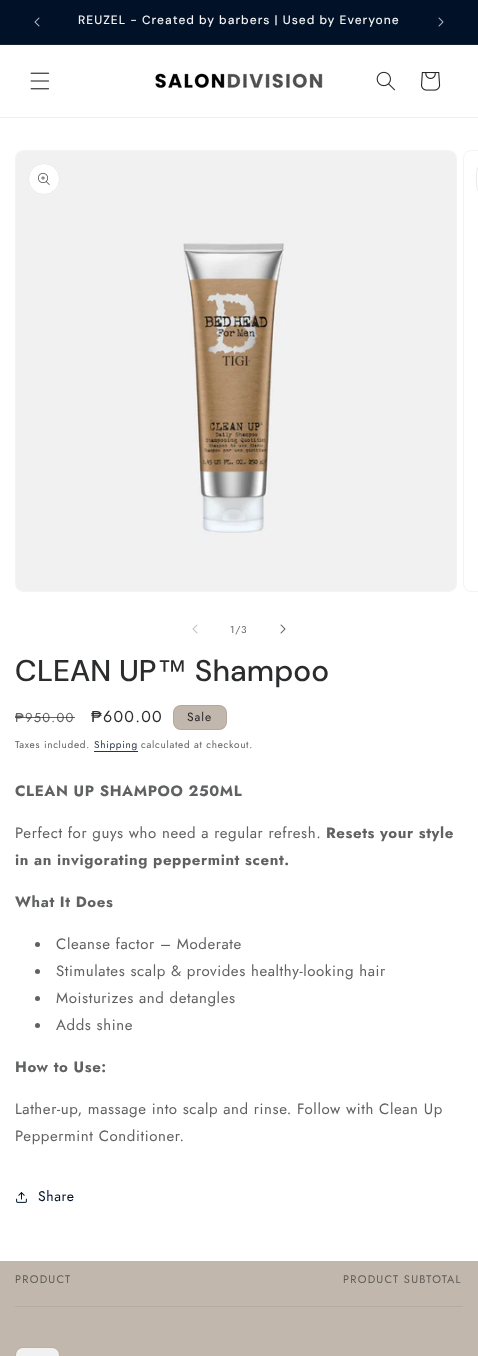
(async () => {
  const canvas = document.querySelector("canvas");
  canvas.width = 478;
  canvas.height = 1356;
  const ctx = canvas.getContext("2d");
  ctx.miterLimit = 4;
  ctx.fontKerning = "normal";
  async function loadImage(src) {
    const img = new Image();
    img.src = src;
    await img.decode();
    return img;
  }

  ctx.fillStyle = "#ffffff";
  ctx.fillRect(0, 0, 478, 1356);
  ctx.fillStyle = "#001128";
  ctx.fillRect(0, 0, 478, 44);
  ctx.fillStyle = "#142338";
  ctx.fillRect(0, 44, 478, 1);
  ctx.drawImage(await loadImage("img/1.png"), 34, 17, 6, 10);
  ctx.drawImage(await loadImage("img/2.png"), 438, 17, 6, 10);
  ctx.fillStyle = "#eeeeee";
  ctx.fillRect(0, 117, 478, 1);
  ctx.drawImage(await loadImage("img/3.png"), 30, 72, 20, 18);
  ctx.drawImage(await loadImage("img/4.png"), 154, 73, 169, 16);
  ctx.drawImage(await loadImage("img/5.png"), 376, 71, 19, 20);
  ctx.drawImage(await loadImage("img/6.png"), 421, 72, 20, 19);
  ctx.beginPath();
  ctx.roundRect(15.5, 150.5, 441, 441, 7.5);
  ctx.strokeStyle = "#f4f4f5";
  ctx.stroke();
  ctx.drawImage(await loadImage("img/7.png"), 16, 151, 440, 440);
  ctx.fillStyle = "#ffffff";
  ctx.beginPath();
  ctx.arc(44, 179, 16, 0, Math.PI * 2);
  ctx.fill();
  ctx.beginPath();
  ctx.arc(44, 179, 15.5, 0, Math.PI * 2);
  ctx.strokeStyle = "rgba(43, 44, 45, 0.1)";
  ctx.stroke();
  ctx.drawImage(await loadImage("img/8.png"), 38, 173, 12, 12);
  ctx.beginPath();
  ctx.roundRect(463.5, 150.5, 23, 441, 7.5);
  ctx.strokeStyle = "#f4f4f5";
  ctx.stroke();
  ctx.beginPath();
  ctx.roundRect(476.5, 163.5, 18, 31, 15.5);
  ctx.strokeStyle = "#eaeaea";
  ctx.stroke();
  ctx.drawImage(await loadImage("img/9.png"), 192, 624, 6, 10);
  ctx.drawImage(await loadImage("img/10.png"), 280, 624, 6, 10);
  ctx.fillStyle = "#c2b7ac";
  ctx.beginPath();
  ctx.roundRect(173, 705, 54, 25, 8);
  ctx.fill();
  ctx.beginPath();
  ctx.roundRect(173.5, 705.5, 53, 24, 7.5);
  ctx.strokeStyle = "rgba(38, 38, 38, 0.1)";
  ctx.stroke();
  ctx.fillStyle = "#263548";
  ctx.fillRect(94, 751, 44, 1);
  ctx.fillStyle = "#606162";
  ctx.beginPath();
  ctx.arc(37.5, 944.5, 2.5, 0, Math.PI * 2);
  ctx.fill();
  ctx.beginPath();
  ctx.arc(37.5, 971.5, 2.5, 0, Math.PI * 2);
  ctx.fill();
  ctx.beginPath();
  ctx.arc(37.5, 998.5, 2.5, 0, Math.PI * 2);
  ctx.fill();
  ctx.beginPath();
  ctx.arc(37.5, 1025.5, 2.5, 0, Math.PI * 2);
  ctx.fill();
  ctx.drawImage(await loadImage("img/11.png"), 16, 1192, 11, 11);
  ctx.fillStyle = "#c2b7ac";
  ctx.fillRect(0, 1261, 478, 95);
  ctx.fillStyle = "#b6aba1";
  ctx.fillRect(15, 1306, 448, 1);
  ctx.beginPath();
  ctx.roundRect(15.5, 1347.5, 44, 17, 7.5);
  ctx.strokeStyle = "#bab0a5";
  ctx.stroke();
  ctx.drawImage(await loadImage("img/12.png"), 16, 1348, 43, 8);
  ctx.letterSpacing = "1px";
  ctx.font = "500 12px 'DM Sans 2'";
  ctx.fillStyle = "#f4f4f4";
  ctx.fillText("REUZEL - Created by barbers | Used by Everyone", 78, 24);
  ctx.letterSpacing = "0.7px";
  ctx.font = "10px Jost";
  ctx.fillStyle = "#606162";
  ctx.fillText("1/3", 230, 633);
  ctx.letterSpacing = "0.6px";
  ctx.font = "500 30px DM Sans";
  ctx.fillStyle = "#2b2c2d";
  ctx.fillText("CLEAN UP", 15, 681);
  ctx.font = "30px Liberation Sans";
  ctx.fillText("™", 157, 681);
  ctx.font = "500 30px DM Sans";
  ctx.fillText("Shampoo", 195, 681);
  ctx.letterSpacing = "1.25px";
  ctx.font = "13px Liberation Sans";
  ctx.fillStyle = "#606162";
  ctx.fillText("₱", 15, 722);
  ctx.font = "13px Jost";
  ctx.fillText("950.00", 25, 722);
  ctx.fillStyle = "rgba(43, 44, 45, 0.75)";
  ctx.fillRect(15, 717, 60, 1);
  ctx.font = "16px Liberation Sans";
  ctx.fillStyle = "#2b2c2d";
  ctx.fillText("₱", 91, 722);
  ctx.font = "16px Jost";
  ctx.fillText("600.00", 103, 722);
  ctx.letterSpacing = "1px";
  ctx.font = "12px Jost";
  ctx.fillStyle = "#262626";
  ctx.fillText("Sale", 187, 721);
  ctx.letterSpacing = "0.7px";
  ctx.font = "10px Jost";
  ctx.fillStyle = "#606162";
  ctx.fillText("Taxes included.", 15, 748);
  ctx.fillStyle = "#263548";
  ctx.fillText("Shipping", 94, 748);
  ctx.fillStyle = "#606162";
  ctx.fillText("calculated at checkout.", 141, 748);
  ctx.letterSpacing = "0.6px";
  ctx.font = "bold 15px Jost";
  ctx.fillText("CLEAN UP SHAMPOO 250ML", 15, 796);
  ctx.font = "15px Jost";
  ctx.fillText("Perfect for guys who need a regular refresh.", 15, 838);
  ctx.font = "bold 15px Jost";
  for (const [text, x, y] of [
    ["Resets your style", 326, 838],
    ["in an invigorating peppermint scent.", 15, 865],
    ["What It Does", 15, 907],
  ]) {
    ctx.fillText(text, x, y);
  }
  ctx.font = "15px Jost";
  for (const [text, x, y] of [
    ["Cleanse factor – Moderate", 56, 949],
    ["Stimulates scalp & provides healthy-looking hair", 56, 976],
    ["Moisturizes and detangles", 56, 1003],
    ["Adds shine", 56, 1030],
  ]) {
    ctx.fillText(text, x, y);
  }
  ctx.font = "bold 15px Jost";
  ctx.fillText("How to Use:", 15, 1072);
  ctx.font = "15px Jost";
  ctx.fillText("Lather-up, massage into scalp and rinse. Follow with Clean Up", 15, 1114);
  ctx.fillText("Peppermint Conditioner.", 15, 1141);
  ctx.font = "14px Jost";
  ctx.fillStyle = "#001128";
  ctx.fillText("Share", 38, 1201);
  ctx.letterSpacing = "1.25px";
  ctx.font = "11px Jost";
  ctx.fillStyle = "#5e5b57";
  ctx.fillText("PRODUCT", 15, 1283);
  ctx.fillText("PRODUCT SUBTOTAL", 343, 1283);
})();
